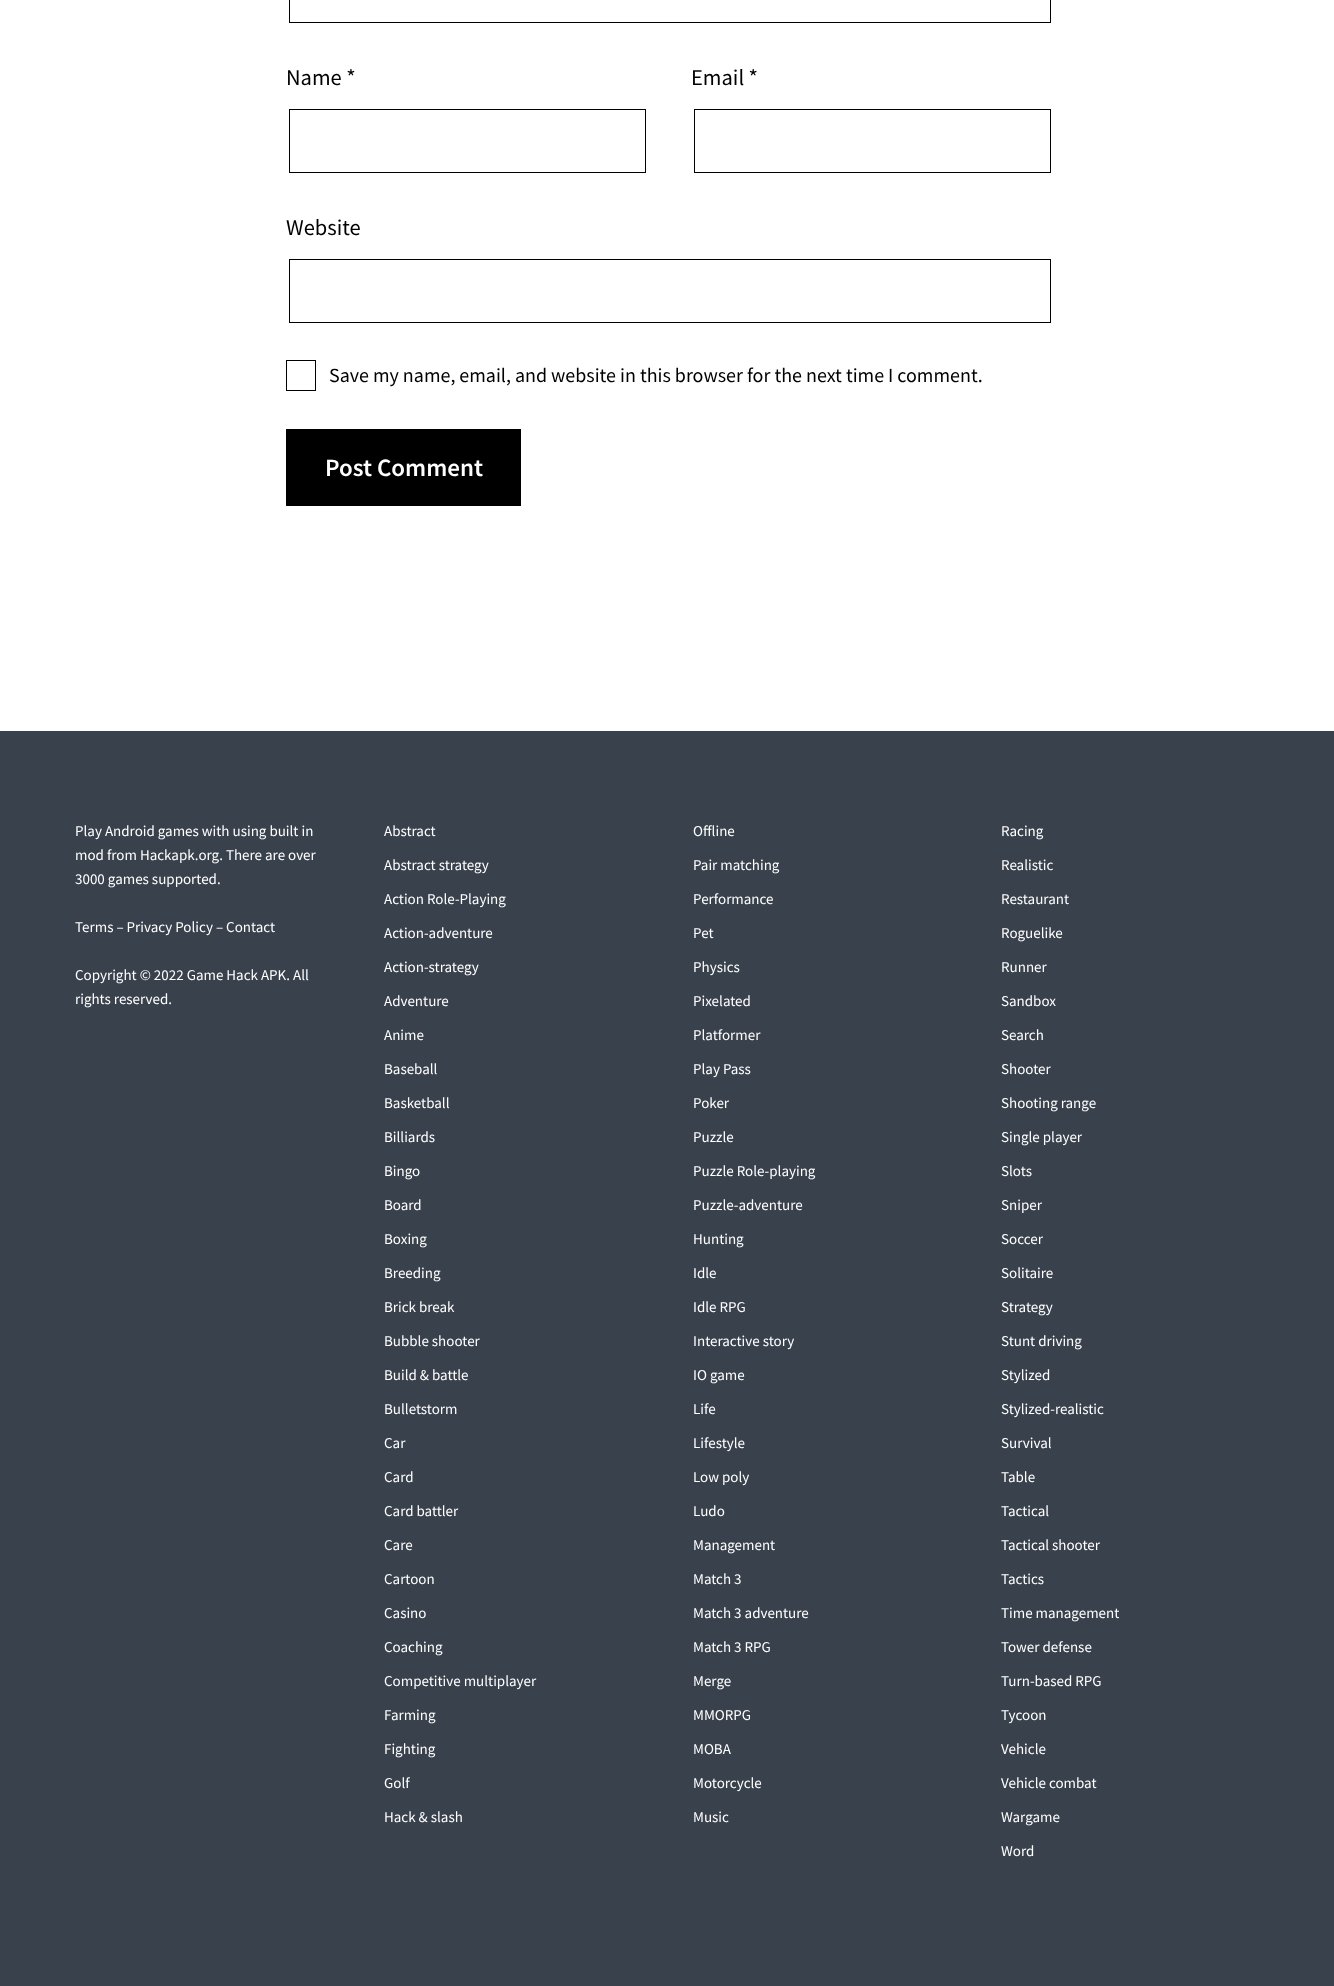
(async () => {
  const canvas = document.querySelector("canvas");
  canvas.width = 1334;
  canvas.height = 1986;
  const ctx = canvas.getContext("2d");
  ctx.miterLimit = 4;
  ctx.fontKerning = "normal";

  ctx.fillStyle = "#ffffff";
  ctx.fillRect(0, 0, 1334, 1986);
  ctx.strokeStyle = "#000000";
  ctx.strokeRect(289.5, -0.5, 761, 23);
  ctx.strokeRect(289.5, 109.5, 356, 63);
  ctx.strokeRect(694.5, 109.5, 356, 63);
  ctx.strokeRect(289.5, 259.5, 761, 63);
  ctx.strokeRect(286.5, 360.5, 29, 30);
  ctx.fillStyle = "#000000";
  ctx.fillRect(286, 429, 235, 77);
  ctx.fillStyle = "#39414d";
  ctx.fillRect(0, 731, 1334, 1255);
  ctx.font = "22.5px Source Sans Pro";
  ctx.fillStyle = "#000000";
  for (const [text, x, y] of [
    ["Name *", 286, 85],
    ["Email *", 691, 85],
    ["Website", 286, 235],
  ]) {
    ctx.fillText(text, x, y);
  }
  ctx.font = "20px Source Sans Pro";
  ctx.fillText("Save my name, email, and website in this browser for the next time I comment.", 329, 382);
  ctx.font = "600 25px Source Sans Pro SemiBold";
  ctx.fillStyle = "#ffffff";
  ctx.fillText("Post Comment", 325, 476);
  ctx.font = "15px Source Sans Pro";
  for (const [text, x, y] of [
    ["Play Android games with using built in", 75, 836],
    ["mod from Hackapk.org. There are over", 75, 860],
    ["3000 games supported.", 75, 884],
    ["Terms – Privacy Policy – Contact", 75, 932],
    ["Copyright © 2022 Game Hack APK. All", 75, 980],
    ["rights reserved.", 75, 1004],
    ["Abstract", 384, 836],
    ["Abstract strategy", 384, 870],
    ["Action Role-Playing", 384, 904],
    ["Action-adventure", 384, 938],
    ["Action-strategy", 384, 972],
    ["Adventure", 384, 1006],
    ["Anime", 384, 1040],
    ["Baseball", 384, 1074],
    ["Basketball", 384, 1108],
    ["Billiards", 384, 1142],
    ["Bingo", 384, 1176],
    ["Board", 384, 1210],
    ["Boxing", 384, 1244],
    ["Breeding", 384, 1278],
    ["Brick break", 384, 1312],
    ["Bubble shooter", 384, 1346],
    ["Build & battle", 384, 1380],
    ["Bulletstorm", 384, 1414],
    ["Car", 384, 1448],
    ["Card", 384, 1482],
    ["Card battler", 384, 1516],
    ["Care", 384, 1550],
    ["Cartoon", 384, 1584],
    ["Casino", 384, 1618],
    ["Coaching", 384, 1652],
    ["Competitive multiplayer", 384, 1686],
    ["Farming", 384, 1720],
    ["Fighting", 384, 1754],
    ["Golf", 384, 1788],
    ["Hack & slash", 384, 1822],
    ["Offline", 693, 836],
    ["Pair matching", 693, 870],
    ["Performance", 693, 904],
    ["Pet", 693, 938],
    ["Physics", 693, 972],
    ["Pixelated", 693, 1006],
    ["Platformer", 693, 1040],
    ["Play Pass", 693, 1074],
    ["Poker", 693, 1108],
    ["Puzzle", 693, 1142],
    ["Puzzle Role-playing", 693, 1176],
    ["Puzzle-adventure", 693, 1210],
    ["Hunting", 693, 1244],
    ["Idle", 693, 1278],
    ["Idle RPG", 693, 1312],
    ["Interactive story", 693, 1346],
    ["IO game", 693, 1380],
    ["Life", 693, 1414],
    ["Lifestyle", 693, 1448],
    ["Low poly", 693, 1482],
    ["Ludo", 693, 1516],
    ["Management", 693, 1550],
    ["Match 3", 693, 1584],
    ["Match 3 adventure", 693, 1618],
    ["Match 3 RPG", 693, 1652],
    ["Merge", 693, 1686],
    ["MMORPG", 693, 1720],
    ["MOBA", 693, 1754],
    ["Motorcycle", 693, 1788],
    ["Music", 693, 1822],
    ["Racing", 1001, 836],
    ["Realistic", 1001, 870],
    ["Restaurant", 1001, 904],
    ["Roguelike", 1001, 938],
    ["Runner", 1001, 972],
    ["Sandbox", 1001, 1006],
    ["Search", 1001, 1040],
    ["Shooter", 1001, 1074],
    ["Shooting range", 1001, 1108],
    ["Single player", 1001, 1142],
    ["Slots", 1001, 1176],
    ["Sniper", 1001, 1210],
    ["Soccer", 1001, 1244],
    ["Solitaire", 1001, 1278],
    ["Strategy", 1001, 1312],
    ["Stunt driving", 1001, 1346],
    ["Stylized", 1001, 1380],
    ["Stylized-realistic", 1001, 1414],
    ["Survival", 1001, 1448],
    ["Table", 1001, 1482],
    ["Tactical", 1001, 1516],
    ["Tactical shooter", 1001, 1550],
    ["Tactics", 1001, 1584],
    ["Time management", 1001, 1618],
    ["Tower defense", 1001, 1652],
    ["Turn-based RPG", 1001, 1686],
    ["Tycoon", 1001, 1720],
    ["Vehicle", 1001, 1754],
    ["Vehicle combat", 1001, 1788],
    ["Wargame", 1001, 1822],
    ["Word", 1001, 1856],
  ]) {
    ctx.fillText(text, x, y);
  }
})();
